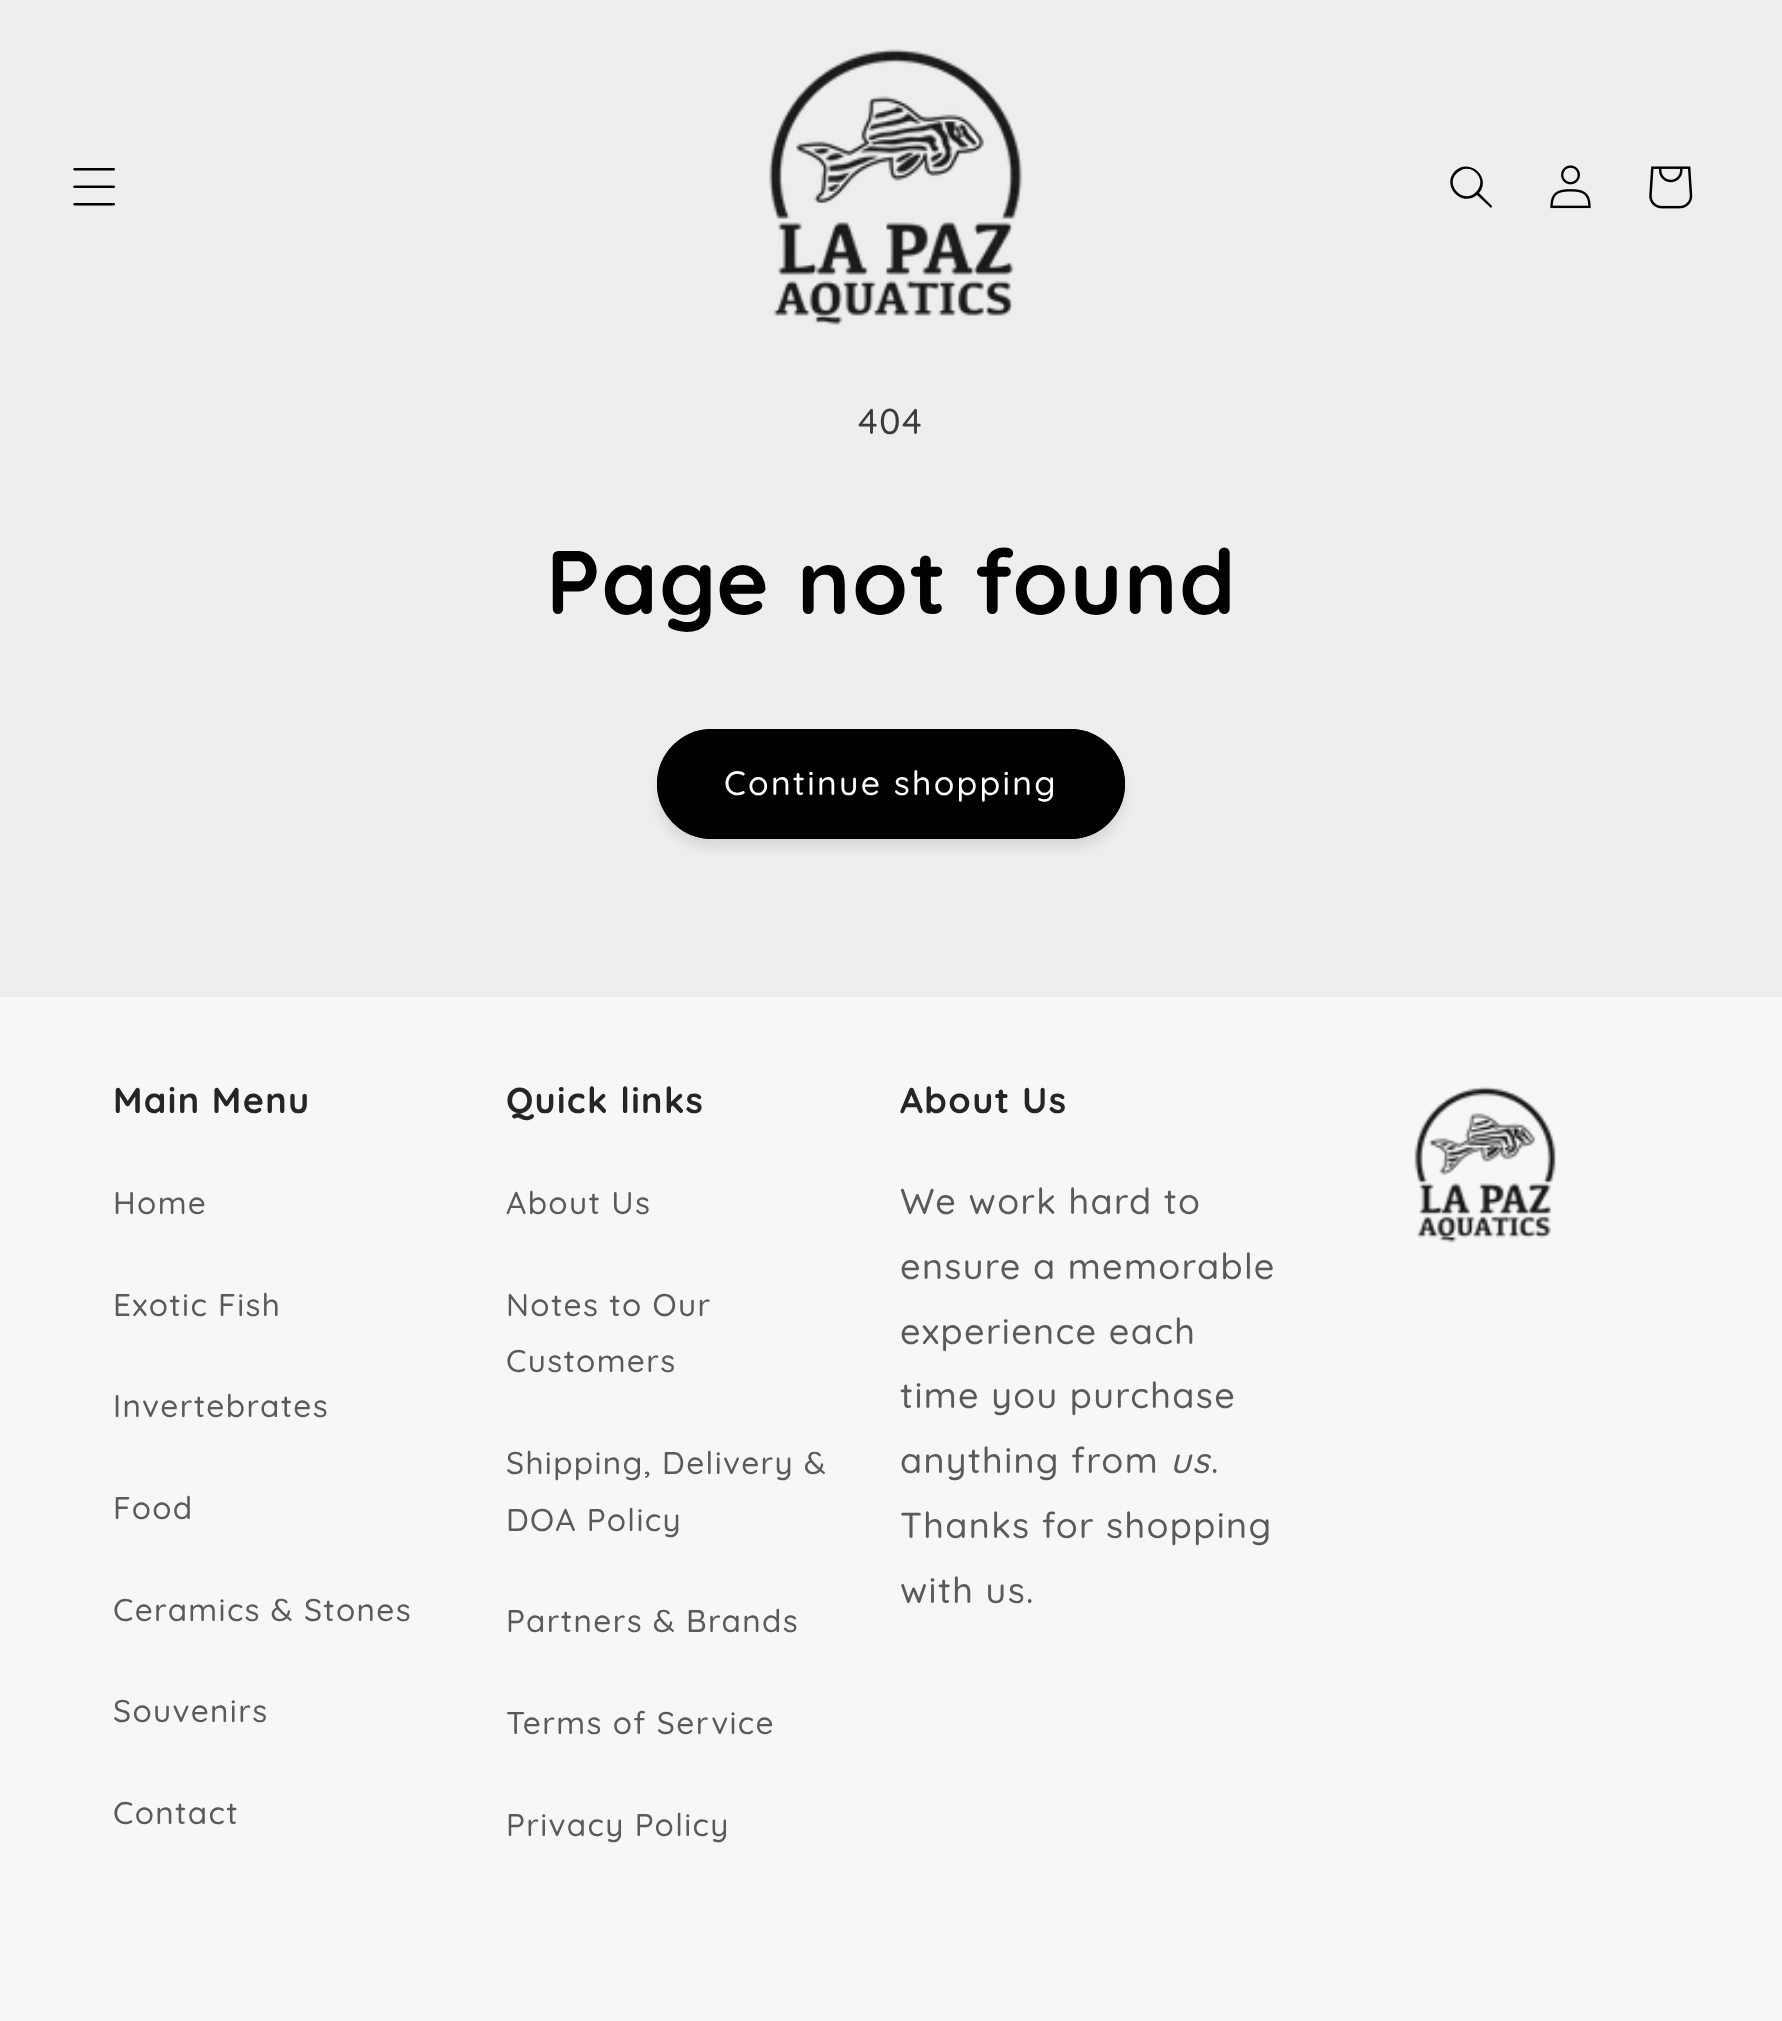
(async () => {
  const canvas = document.querySelector("canvas");
  canvas.width = 1782;
  canvas.height = 2021;
  const ctx = canvas.getContext("2d");
  ctx.miterLimit = 4;
  ctx.fontKerning = "normal";
  async function loadImage(src) {
    const img = new Image();
    img.src = src;
    await img.decode();
    return img;
  }
  let path;

  ctx.fillStyle = "#eeeeee";
  ctx.fillRect(0, 0, 1782, 2021);
  ctx.drawImage(await loadImage("img/1.png"), 73, 168, 42, 38);
  ctx.drawImage(await loadImage("img/2.png"), 769, 49, 254, 276);
  ctx.fillStyle = "#000000";
  path = new Path2D("M1476 192C1464 205 1444 185 1457 173C1470 160 1489 179 1476 192M1477 195C1461 208 1441 185 1455 171C1470 157 1492 178 1479 193L1492 206C1492 208 1490 208 1490 207Z");
  ctx.fill(path, "evenodd");
  ctx.drawImage(await loadImage("img/3.png"), 1550, 165, 41, 44);
  ctx.drawImage(await loadImage("img/4.png"), 1649, 166, 44, 43);
  ctx.fillStyle = "rgba(18, 18, 18, 0.1)";
  ctx.filter = "blur(5.5px)";
  ctx.beginPath();
  ctx.roundRect(657, 738, 468, 110, 55);
  ctx.fill();
  ctx.filter = "none";
  ctx.fillStyle = "#000000";
  ctx.beginPath();
  ctx.roundRect(657, 729, 468, 110, 55);
  ctx.fill();
  ctx.beginPath();
  ctx.roundRect(659.5, 731.5, 463, 105, 52.5);
  ctx.strokeStyle = "#000000";
  ctx.lineWidth = 5;
  ctx.stroke();
  ctx.fillStyle = "#f7f7f7";
  ctx.fillRect(0, 997, 1782, 1024);
  ctx.drawImage(await loadImage("img/5.png"), 1414, 1086, 142, 157);
  ctx.letterSpacing = "1.35px";
  ctx.font = "500 36px Quicksand";
  ctx.fillStyle = "#3c3c3c";
  ctx.fillText("404", 858, 434);
  ctx.font = "bold 90px Quicksand";
  ctx.fillStyle = "#000000";
  ctx.fillText("Page not found", 546, 614);
  ctx.letterSpacing = "2.25px";
  ctx.font = "500 33.75px Quicksand";
  ctx.fillStyle = "#ffffff";
  ctx.fillText("Continue shopping", 724, 795);
  ctx.letterSpacing = "1.35px";
  ctx.font = "bold 36px Quicksand";
  ctx.fillStyle = "#252525";
  ctx.fillText("Main Menu", 113, 1113);
  ctx.font = "500 31.5px Quicksand";
  ctx.fillStyle = "#5a5a5a";
  for (const [text, x, y] of [
    ["Home", 113, 1214],
    ["Exotic Fish", 113, 1316],
    ["Invertebrates", 113, 1417],
    ["Food", 113, 1519],
    ["Ceramics & Stones", 113, 1621],
    ["Souvenirs", 113, 1722],
    ["Contact", 113, 1824],
  ]) {
    ctx.fillText(text, x, y);
  }
  ctx.font = "bold 36px Quicksand";
  ctx.fillStyle = "#252525";
  ctx.fillText("Quick links", 506, 1113);
  ctx.font = "500 31.5px Quicksand";
  ctx.fillStyle = "#5a5a5a";
  for (const [text, x, y] of [
    ["About Us", 506, 1214],
    ["Notes to Our", 506, 1316],
    ["Customers", 506, 1372],
    ["Shipping, Delivery &", 506, 1474],
    ["DOA Policy", 506, 1531],
    ["Partners & Brands", 506, 1632],
    ["Terms of Service", 506, 1734],
    ["Privacy Policy", 506, 1836],
  ]) {
    ctx.fillText(text, x, y);
  }
  ctx.font = "bold 36px Quicksand";
  ctx.fillStyle = "#252525";
  ctx.fillText("About Us", 900, 1113);
  ctx.font = "500 36px Quicksand";
  ctx.fillStyle = "#5a5a5a";
  for (const [text, x, y] of [
    ["We work hard to", 900, 1214],
    ["ensure a memorable", 900, 1279],
    ["experience each", 900, 1344],
    ["time you purchase", 900, 1408],
    ["anything from", 900, 1473],
  ]) {
    ctx.fillText(text, x, y);
  }
  ctx.font = "italic 500 36px Quicksand";
  ctx.fillText("us", 1170, 1473);
  ctx.font = "500 36px Quicksand";
  for (const [text, x, y] of [
    [".", 1211, 1473],
    ["Thanks for shopping", 900, 1538],
    ["with us.", 900, 1603],
  ]) {
    ctx.fillText(text, x, y);
  }
})();
